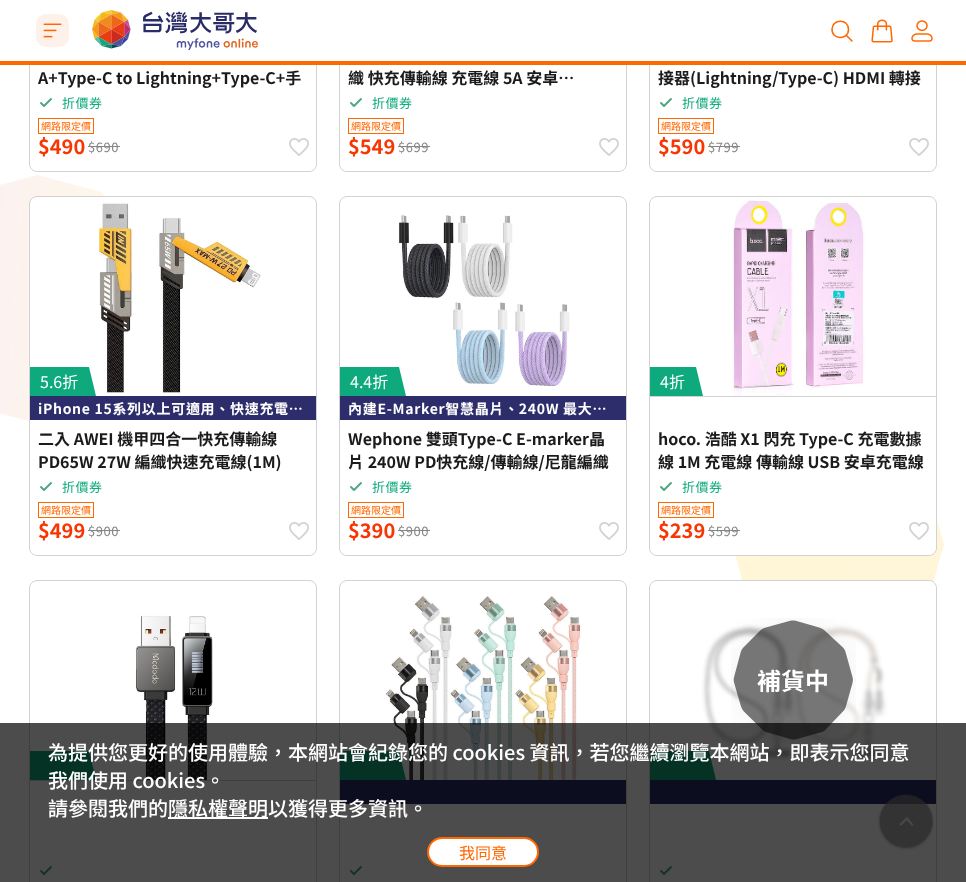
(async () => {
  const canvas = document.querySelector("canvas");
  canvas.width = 966;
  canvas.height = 882;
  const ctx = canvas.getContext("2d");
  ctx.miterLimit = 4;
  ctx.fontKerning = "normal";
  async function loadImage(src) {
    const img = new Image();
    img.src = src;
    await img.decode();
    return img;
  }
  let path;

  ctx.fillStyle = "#ffffff";
  ctx.fillRect(0, 0, 966, 882);
  ctx.beginPath();
  ctx.roundRect(29.5, -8.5, 287, 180, 7.5);
  ctx.strokeStyle = "#d2d2d2";
  ctx.stroke();
  ctx.beginPath();
  ctx.roundRect(30, 13, 286, 158, [0, 0, 8, 8]);
  ctx.fill();
  ctx.beginPath();
  ctx.roundRect(339.5, -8.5, 287, 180, 7.5);
  ctx.stroke();
  ctx.beginPath();
  ctx.roundRect(340, 13, 286, 158, [0, 0, 8, 8]);
  ctx.fill();
  ctx.beginPath();
  ctx.roundRect(649.5, -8.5, 287, 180, 7.5);
  ctx.stroke();
  ctx.beginPath();
  ctx.roundRect(650, 13, 286, 158, [0, 0, 8, 8]);
  ctx.fill();
  ctx.fillRect(29, 0, 908, 61);
  ctx.fillStyle = "#ff6700";
  ctx.fillRect(0, 61, 966, 4);
  ctx.fillStyle = "#fdf1ea";
  ctx.beginPath();
  ctx.roundRect(36, 14, 33, 33, 10);
  ctx.fill();
  ctx.drawImage(await loadImage("img/1.png"), 43, 23, 19, 15);
  ctx.drawImage(await loadImage("img/2.png"), 92, 10, 166, 40);
  path = new Path2D("M852 41L846 35M848.5 29.5C848.5 40.5 831.5 40 832 29C832.5 18.5 848.5 18.5 848.5 29.5Z");
  ctx.strokeStyle = "#ff6700";
  ctx.lineWidth = 1.5;
  ctx.lineCap = "round";
  ctx.lineJoin = "round";
  ctx.stroke(path);
  ctx.drawImage(await loadImage("img/3.png"), 871, 19, 22, 24);
  ctx.drawImage(await loadImage("img/4.png"), 911, 20, 22, 22);
  ctx.drawImage(await loadImage("img/5.png"), 0, 175, 944, 407);
  path = new Path2D("M51 99L44 106L41 103");
  ctx.strokeStyle = "#4ca680";
  ctx.lineWidth = 1.9;
  ctx.stroke(path);
  ctx.strokeStyle = "#ff6700";
  ctx.lineWidth = 1;
  ctx.lineJoin = "miter";
  ctx.strokeRect(38.5, 118.5, 55, 15);
  ctx.fillStyle = "#868686";
  ctx.fillRect(88, 146, 32, 1);
  ctx.drawImage(await loadImage("img/6.png"), 289, 138, 20, 18);
  path = new Path2D("M361 99L354 106L351 103");
  ctx.strokeStyle = "#4ca680";
  ctx.lineWidth = 1.9;
  ctx.lineJoin = "round";
  ctx.stroke(path);
  ctx.strokeStyle = "#ff6700";
  ctx.lineWidth = 1;
  ctx.lineJoin = "miter";
  ctx.strokeRect(348.5, 118.5, 55, 15);
  ctx.fillRect(398, 146, 32, 1);
  ctx.drawImage(await loadImage("img/6.png"), 599, 138, 20, 18);
  path = new Path2D("M671 99L664 106L661 103");
  ctx.strokeStyle = "#4ca680";
  ctx.lineWidth = 1.9;
  ctx.lineJoin = "round";
  ctx.stroke(path);
  ctx.strokeStyle = "#ff6700";
  ctx.lineWidth = 1;
  ctx.lineJoin = "miter";
  ctx.strokeRect(658.5, 118.5, 55, 15);
  ctx.fillRect(708, 146, 32, 1);
  ctx.drawImage(await loadImage("img/6.png"), 909, 138, 20, 18);
  ctx.fillStyle = "#ffffff";
  ctx.beginPath();
  ctx.roundRect(29.5, 196.5, 287, 359, 7.5);
  ctx.fill();
  ctx.strokeStyle = "#d2d2d2";
  ctx.stroke();
  ctx.fillStyle = "#0eaa7d";
  path = new Path2D("M96 396L89 367H30V396Z");
  ctx.fill(path);
  ctx.drawImage(await loadImage("img/7.png"), 99, 203, 162, 190);
  ctx.fillStyle = "#ffffff";
  ctx.beginPath();
  ctx.roundRect(30, 397, 286, 158, [0, 0, 8, 8]);
  ctx.fill();
  ctx.fillStyle = "#2d2d6c";
  ctx.fillRect(30, 396, 286, 24);
  path = new Path2D("M51 483L44 490L41 487");
  ctx.strokeStyle = "#4ca680";
  ctx.lineWidth = 1.9;
  ctx.lineJoin = "round";
  ctx.stroke(path);
  ctx.strokeStyle = "#ff6700";
  ctx.lineWidth = 1;
  ctx.lineJoin = "miter";
  ctx.strokeRect(38.5, 502.5, 55, 15);
  ctx.fillStyle = "#868686";
  ctx.fillRect(88, 530, 32, 1);
  ctx.drawImage(await loadImage("img/6.png"), 289, 522, 20, 18);
  ctx.beginPath();
  ctx.roundRect(339.5, 196.5, 287, 359, 7.5);
  ctx.strokeStyle = "#d2d2d2";
  ctx.stroke();
  ctx.drawImage(await loadImage("img/8.png"), 398, 215, 172, 172);
  ctx.fillStyle = "#0eaa7d";
  path = new Path2D("M406 396L399 367H340V396Z");
  ctx.fill(path);
  ctx.fillStyle = "#ffffff";
  ctx.beginPath();
  ctx.roundRect(340, 397, 286, 158, [0, 0, 8, 8]);
  ctx.fill();
  ctx.fillStyle = "#2d2d6c";
  ctx.fillRect(340, 396, 286, 24);
  path = new Path2D("M361 483L354 490L351 487");
  ctx.strokeStyle = "#4ca680";
  ctx.lineWidth = 1.9;
  ctx.lineJoin = "round";
  ctx.stroke(path);
  ctx.strokeStyle = "#ff6700";
  ctx.lineWidth = 1;
  ctx.lineJoin = "miter";
  ctx.strokeRect(348.5, 502.5, 55, 15);
  ctx.fillStyle = "#868686";
  ctx.fillRect(398, 530, 32, 1);
  ctx.drawImage(await loadImage("img/6.png"), 599, 522, 20, 18);
  ctx.fillStyle = "#ffffff";
  ctx.beginPath();
  ctx.roundRect(649.5, 196.5, 287, 359, 7.5);
  ctx.fill();
  ctx.strokeStyle = "#d2d2d2";
  ctx.stroke();
  ctx.fillStyle = "#d2d2d2";
  ctx.fillRect(650, 396, 286, 1);
  ctx.fillStyle = "#0eaa7d";
  path = new Path2D("M703 396L696 367H650V396Z");
  ctx.fill(path);
  ctx.drawImage(await loadImage("img/9.png"), 732, 200, 133, 196);
  ctx.fillStyle = "#ffffff";
  ctx.beginPath();
  ctx.roundRect(650, 397, 286, 158, [0, 0, 8, 8]);
  ctx.fill();
  path = new Path2D("M671 483L664 490L661 487");
  ctx.strokeStyle = "#4ca680";
  ctx.lineWidth = 1.9;
  ctx.lineJoin = "round";
  ctx.stroke(path);
  ctx.strokeStyle = "#ff6700";
  ctx.lineWidth = 1;
  ctx.lineJoin = "miter";
  ctx.strokeRect(658.5, 502.5, 55, 15);
  ctx.fillStyle = "#868686";
  ctx.fillRect(708, 530, 32, 1);
  ctx.drawImage(await loadImage("img/6.png"), 909, 522, 20, 18);
  ctx.beginPath();
  ctx.roundRect(29.5, 580.5, 287, 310, 7.5);
  ctx.strokeStyle = "#d2d2d2";
  ctx.stroke();
  ctx.fillStyle = "#d2d2d2";
  ctx.fillRect(30, 780, 286, 1);
  ctx.fillStyle = "#0eaa7d";
  path = new Path2D("M96 780L89 751H30V780Z");
  ctx.fill(path);
  ctx.drawImage(await loadImage("img/10.png"), 135, 615, 78, 165);
  path = new Path2D("M51 867L44 874L41 871");
  ctx.strokeStyle = "#4ca680";
  ctx.lineWidth = 1.9;
  ctx.lineJoin = "round";
  ctx.stroke(path);
  ctx.beginPath();
  ctx.roundRect(339.5, 580.5, 287, 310, 7.5);
  ctx.strokeStyle = "#d2d2d2";
  ctx.lineWidth = 1;
  ctx.lineJoin = "miter";
  ctx.stroke();
  ctx.drawImage(await loadImage("img/11.png"), 386, 595, 196, 185);
  path = new Path2D("M406 780L399 751H340V780Z");
  ctx.fill(path);
  ctx.fillStyle = "#2d2d6c";
  ctx.fillRect(340, 780, 286, 24);
  path = new Path2D("M361 867L354 874L351 871");
  ctx.strokeStyle = "#4ca680";
  ctx.lineWidth = 1.9;
  ctx.lineJoin = "round";
  ctx.stroke(path);
  ctx.fillStyle = "#ffffff";
  ctx.beginPath();
  ctx.roundRect(649.5, 580.5, 287, 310, 7.5);
  ctx.fill();
  ctx.strokeStyle = "#d2d2d2";
  ctx.lineWidth = 1;
  ctx.lineJoin = "miter";
  ctx.stroke();
  ctx.drawImage(await loadImage("img/13.png"), 701, 624, 187, 137);
  ctx.fillStyle = "rgba(255, 255, 255, 0.6)";
  ctx.beginPath();
  ctx.roundRect(650, 581, 286, 199, [8, 8, 0, 0]);
  ctx.fill();
  ctx.drawImage(await loadImage("img/12.png"), 731, 618, 125, 124);
  ctx.fillStyle = "#0eaa7d";
  path = new Path2D("M716 780L709 751H650V780Z");
  ctx.fill(path);
  ctx.fillStyle = "#2d2d6c";
  ctx.fillRect(650, 780, 286, 24);
  path = new Path2D("M671 867L664 874L661 871");
  ctx.strokeStyle = "#4ca680";
  ctx.lineWidth = 1.9;
  ctx.lineJoin = "round";
  ctx.stroke(path);
  ctx.drawImage(await loadImage("img/14.png"), 878, 794, 56, 56);
  ctx.fillStyle = "rgba(0, 0, 0, 0.7)";
  ctx.fillRect(0, 723, 966, 159);
  ctx.fillStyle = "#ffffff";
  ctx.fillRect(168, 817, 100, 2);
  ctx.beginPath();
  ctx.roundRect(428, 838, 110, 28, 14);
  ctx.fill();
  ctx.strokeStyle = "#ff6700";
  ctx.lineWidth = 2;
  ctx.lineJoin = "miter";
  ctx.stroke();
  ctx.font = "bold 16px Noto Sans TC";
  ctx.fillStyle = "#1b1b1b";
  ctx.fillText("A+Type-C to Lightning+Type-C+手", 38, 84);
  ctx.letterSpacing = "0.5px";
  ctx.font = "13px Noto Sans TC";
  ctx.fillStyle = "#0eaa7d";
  ctx.fillText("折價券", 62, 108);
  ctx.letterSpacing = "0px";
  ctx.font = "10px Noto Sans TC";
  ctx.fillStyle = "#ff6700";
  ctx.fillText("網路限定價", 41, 130);
  ctx.font = "bold 20px Noto Sans TC";
  ctx.fillStyle = "#f73603";
  ctx.fillText("$490", 38, 154);
  ctx.letterSpacing = "0.5px";
  ctx.font = "13px Noto Sans TC";
  ctx.fillStyle = "#868686";
  ctx.fillText("$690", 88, 152);
  ctx.letterSpacing = "0px";
  ctx.font = "bold 16px Noto Sans TC";
  ctx.fillStyle = "#1b1b1b";
  ctx.fillText("織 快充傳輸線 充電線 5A 安卓…", 348, 84);
  ctx.letterSpacing = "0.5px";
  ctx.font = "13px Noto Sans TC";
  ctx.fillStyle = "#0eaa7d";
  ctx.fillText("折價券", 372, 108);
  ctx.letterSpacing = "0px";
  ctx.font = "10px Noto Sans TC";
  ctx.fillStyle = "#ff6700";
  ctx.fillText("網路限定價", 351, 130);
  ctx.font = "bold 20px Noto Sans TC";
  ctx.fillStyle = "#f73603";
  ctx.fillText("$549", 348, 154);
  ctx.letterSpacing = "0.5px";
  ctx.font = "13px Noto Sans TC";
  ctx.fillStyle = "#868686";
  ctx.fillText("$699", 398, 152);
  ctx.letterSpacing = "0px";
  ctx.font = "bold 16px Noto Sans TC";
  ctx.fillStyle = "#1b1b1b";
  ctx.fillText("接器(Lightning/Type-C) HDMI 轉接", 658, 84);
  ctx.letterSpacing = "0.5px";
  ctx.font = "13px Noto Sans TC";
  ctx.fillStyle = "#0eaa7d";
  ctx.fillText("折價券", 682, 108);
  ctx.letterSpacing = "0px";
  ctx.font = "10px Noto Sans TC";
  ctx.fillStyle = "#ff6700";
  ctx.fillText("網路限定價", 661, 130);
  ctx.font = "bold 20px Noto Sans TC";
  ctx.fillStyle = "#f73603";
  ctx.fillText("$590", 658, 154);
  ctx.letterSpacing = "0.5px";
  ctx.font = "13px Noto Sans TC";
  ctx.fillStyle = "#868686";
  ctx.fillText("$799", 708, 152);
  ctx.letterSpacing = "0px";
  ctx.font = "16px Noto Sans TC";
  ctx.fillStyle = "#ffffff";
  ctx.fillText("5.6折", 40, 388);
  ctx.letterSpacing = "0.7px";
  ctx.font = "bold 14px Noto Sans TC";
  ctx.fillText("iPhone 15系列以上可適用、快速充電…", 38, 414);
  ctx.letterSpacing = "0px";
  ctx.font = "bold 16px Noto Sans TC";
  ctx.fillStyle = "#1b1b1b";
  ctx.fillText("二入 AWEI 機甲四合一快充傳輸線", 38, 445);
  ctx.fillText("PD65W 27W 編織快速充電線(1M)", 38, 468);
  ctx.letterSpacing = "0.5px";
  ctx.font = "13px Noto Sans TC";
  ctx.fillStyle = "#0eaa7d";
  ctx.fillText("折價券", 62, 492);
  ctx.letterSpacing = "0px";
  ctx.font = "10px Noto Sans TC";
  ctx.fillStyle = "#ff6700";
  ctx.fillText("網路限定價", 41, 514);
  ctx.font = "bold 20px Noto Sans TC";
  ctx.fillStyle = "#f73603";
  ctx.fillText("$499", 38, 538);
  ctx.letterSpacing = "0.5px";
  ctx.font = "13px Noto Sans TC";
  ctx.fillStyle = "#868686";
  ctx.fillText("$900", 88, 536);
  ctx.letterSpacing = "0px";
  ctx.font = "16px Noto Sans TC";
  ctx.fillStyle = "#ffffff";
  ctx.fillText("4.4折", 350, 388);
  ctx.letterSpacing = "0.7px";
  ctx.font = "bold 14px Noto Sans TC";
  ctx.fillText("內建E-Marker智慧晶片、240W 最大…", 348, 414);
  ctx.letterSpacing = "0px";
  ctx.font = "bold 16px Noto Sans TC";
  ctx.fillStyle = "#1b1b1b";
  ctx.fillText("Wephone 雙頭Type-C E-marker晶", 348, 445);
  ctx.fillText("片 240W PD快充線/傳輸線/尼龍編織", 348, 468);
  ctx.letterSpacing = "0.5px";
  ctx.font = "13px Noto Sans TC";
  ctx.fillStyle = "#0eaa7d";
  ctx.fillText("折價券", 372, 492);
  ctx.letterSpacing = "0px";
  ctx.font = "10px Noto Sans TC";
  ctx.fillStyle = "#ff6700";
  ctx.fillText("網路限定價", 351, 514);
  ctx.font = "bold 20px Noto Sans TC";
  ctx.fillStyle = "#f73603";
  ctx.fillText("$390", 348, 538);
  ctx.letterSpacing = "0.5px";
  ctx.font = "13px Noto Sans TC";
  ctx.fillStyle = "#868686";
  ctx.fillText("$900", 398, 536);
  ctx.letterSpacing = "0px";
  ctx.font = "16px Noto Sans TC";
  ctx.fillStyle = "#ffffff";
  ctx.fillText("4折", 660, 388);
  ctx.font = "bold 16px Noto Sans TC";
  ctx.fillStyle = "#1b1b1b";
  ctx.fillText("hoco. 浩酷 X1 閃充 Type-C 充電數據", 658, 445);
  ctx.fillText("線 1M 充電線 傳輸線 USB 安卓充電線", 658, 468);
  ctx.letterSpacing = "0.5px";
  ctx.font = "13px Noto Sans TC";
  ctx.fillStyle = "#0eaa7d";
  ctx.fillText("折價券", 682, 492);
  ctx.letterSpacing = "0px";
  ctx.font = "10px Noto Sans TC";
  ctx.fillStyle = "#ff6700";
  ctx.fillText("網路限定價", 661, 514);
  ctx.font = "bold 20px Noto Sans TC";
  ctx.fillStyle = "#f73603";
  ctx.fillText("$239", 658, 538);
  ctx.letterSpacing = "0.5px";
  ctx.font = "13px Noto Sans TC";
  ctx.fillStyle = "#868686";
  ctx.fillText("$599", 708, 536);
  ctx.letterSpacing = "0px";
  ctx.font = "500 20px Noto Sans TC";
  ctx.fillStyle = "#ffffff";
  for (const [text, x, y] of [
    ["為提供您更好的使用體驗，本網站會紀錄您的 cookies 資訊，若您繼續瀏覽本網站，即表示您同意", 48, 760],
    ["我們使用 cookies。", 48, 788],
    ["請參閱我們的", 48, 816],
    ["隱私權聲明以獲得更多資訊。", 168, 816],
  ]) {
    ctx.fillText(text, x, y);
  }
  ctx.font = "16px Noto Sans TC";
  ctx.fillStyle = "#ff6700";
  ctx.fillText("我同意", 459, 859);
})();
